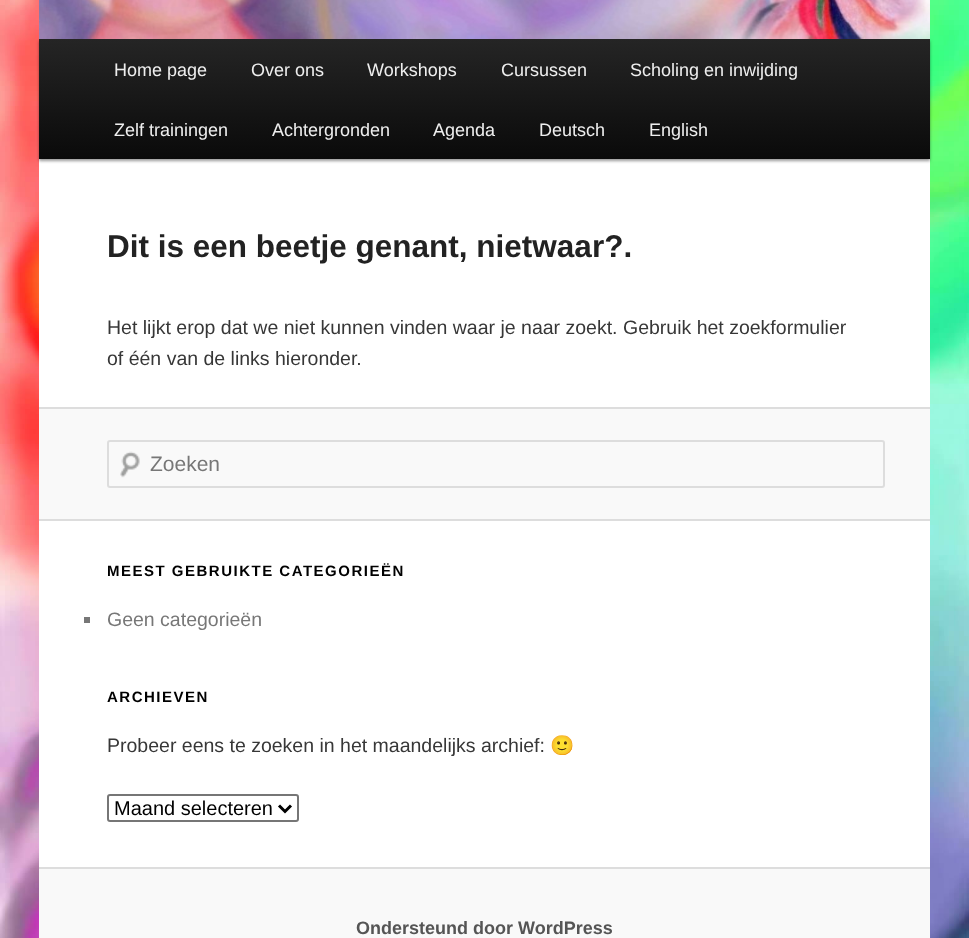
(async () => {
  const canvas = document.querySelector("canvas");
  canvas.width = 969;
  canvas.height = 938;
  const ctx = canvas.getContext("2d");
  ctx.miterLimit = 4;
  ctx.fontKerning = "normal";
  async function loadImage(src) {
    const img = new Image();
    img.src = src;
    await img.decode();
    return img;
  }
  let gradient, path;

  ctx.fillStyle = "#ffffff";
  ctx.fillRect(0, 0, 969, 938);
  ctx.drawImage(await loadImage("img/1.png"), 0, 0, 969, 938);
  ctx.fillRect(39, 159, 891, 708);
  ctx.fillStyle = "rgba(0, 0, 0, 0.4)";
  ctx.filter = "blur(1.5px)";
  ctx.beginPath();
  ctx.rect(39, 41, 891, 120);
  ctx.fill();
  ctx.filter = "none";
  ctx.drawImage(await loadImage("img/2.png"), 39, 0, 891, 39);
  gradient = ctx.createLinearGradient(485, 39, 485, 159);
  gradient.addColorStop(0, "#252525");
  gradient.addColorStop(1, "#0a0a0a");
  ctx.fillStyle = gradient;
  ctx.fillRect(39, 39, 891, 120);
  for (const [x, y, w, h, color] of [
    [39, 409, 891, 110, "#f9f9f9"],
    [39, 407, 891, 2, "#dddddd"],
    [39, 519, 891, 2, "#dddddd"],
  ]) {
    ctx.fillStyle = color;
    ctx.fillRect(x, y, w, h);
  }
  ctx.drawImage(await loadImage("img/3.png"), 120, 451, 20, 27);
  ctx.beginPath();
  ctx.roundRect(108, 441, 776, 46, 2);
  ctx.strokeStyle = "#dddddd";
  ctx.lineWidth = 2;
  ctx.stroke();
  ctx.fillStyle = "#777777";
  ctx.fillRect(84, 617, 6, 6);
  ctx.beginPath();
  ctx.roundRect(108, 795, 190, 26, 2);
  ctx.strokeStyle = "#767676";
  ctx.stroke();
  path = new Path2D("M279 805.5L285 811.5L291 805.5");
  ctx.strokeStyle = "#000000";
  ctx.lineWidth = 3;
  ctx.stroke(path);
  ctx.fillStyle = "#f9f9f9";
  ctx.fillRect(39, 869, 891, 69);
  ctx.fillStyle = "#dddddd";
  ctx.fillRect(39, 867, 891, 2);
  ctx.font = "18px Liberation Sans";
  ctx.fillStyle = "#eeeeee";
  for (const [text, x, y] of [
    ["Home page", 114, 76],
    ["Over ons", 251, 76],
    ["Workshops", 367, 76],
    ["Cursussen", 501, 76],
    ["Scholing en inwijding", 630, 76],
    ["Zelf trainingen", 114, 136],
    ["Achtergronden", 272, 136],
    ["Agenda", 433, 136],
    ["Deutsch", 539, 136],
    ["English", 649, 136],
  ]) {
    ctx.fillText(text, x, y);
  }
  ctx.font = "bold 31.5px Liberation Sans";
  ctx.fillStyle = "#222222";
  ctx.fillText("Dit is een beetje genant, nietwaar?.", 107, 257);
  ctx.font = "19.5px Liberation Sans";
  ctx.fillStyle = "#373737";
  ctx.fillText("Het lijkt erop dat we niet kunnen vinden waar je naar zoekt. Gebruik het zoekformulier", 107, 334);
  ctx.fillText("of één van de links hieronder.", 107, 365);
  ctx.font = "21px Liberation Sans";
  ctx.fillStyle = "#777777";
  ctx.fillText("Zoeken", 150, 471);
  ctx.letterSpacing = "1.5px";
  ctx.font = "bold 15px Liberation Sans";
  ctx.fillStyle = "#000000";
  ctx.fillText("MEEST GEBRUIKTE CATEGORIEËN", 107, 576);
  ctx.letterSpacing = "0px";
  ctx.font = "19.5px Liberation Sans";
  ctx.fillStyle = "#777777";
  ctx.fillText("Geen categorieën", 107, 626);
  ctx.letterSpacing = "1.5px";
  ctx.font = "bold 15px Liberation Sans";
  ctx.fillStyle = "#000000";
  ctx.fillText("ARCHIEVEN", 107, 702);
  ctx.letterSpacing = "0px";
  ctx.font = "19.5px Liberation Sans";
  ctx.fillStyle = "#373737";
  ctx.fillText("Probeer eens te zoeken in het maandelijks archief:", 107, 752);
  ctx.font = "19.5px Noto Color Emoji";
  ctx.fillText("🙂", 550, 752);
  ctx.font = "20px Liberation Sans";
  ctx.fillStyle = "#000000";
  ctx.fillText("Maand selecteren", 114, 815);
  ctx.font = "bold 18px Liberation Sans";
  ctx.fillStyle = "#555555";
  ctx.fillText("Ondersteund door WordPress", 356, 934);
})();
